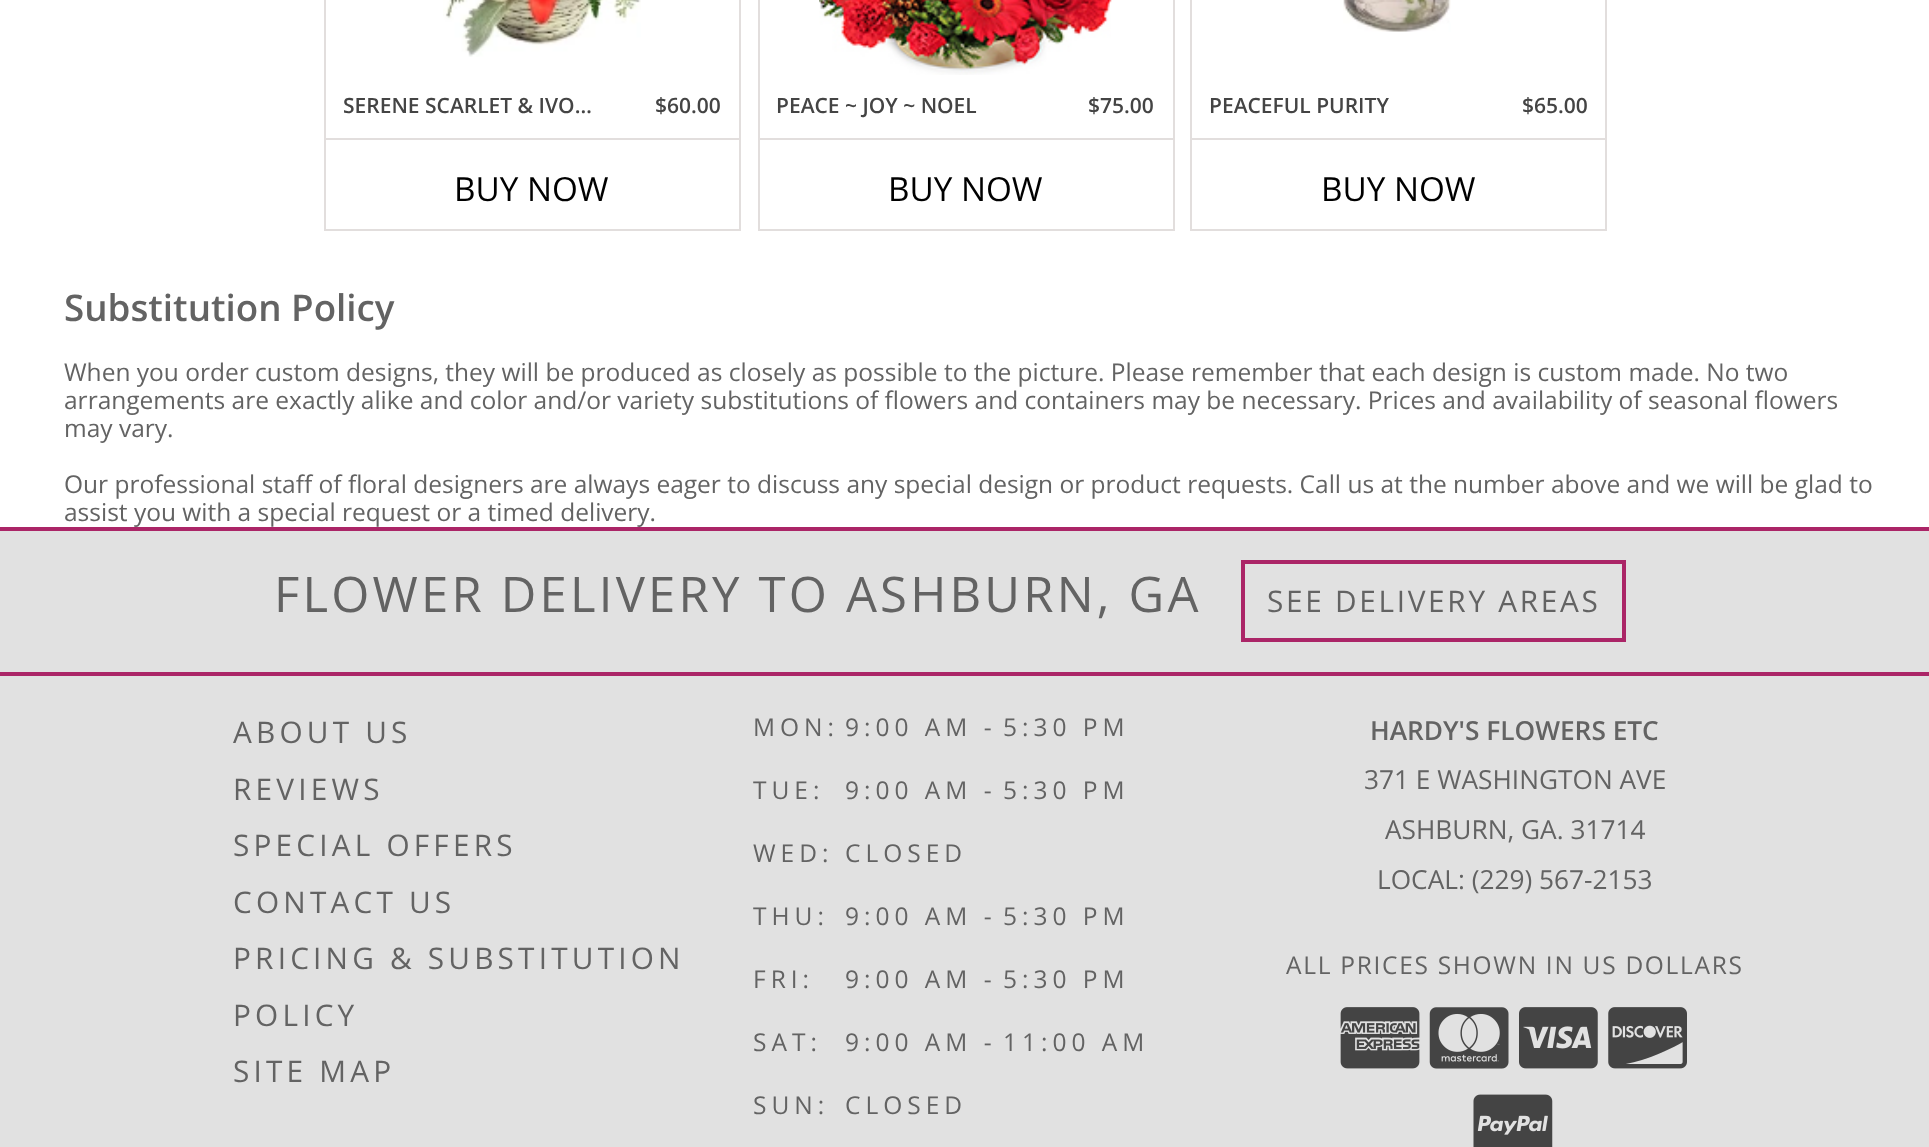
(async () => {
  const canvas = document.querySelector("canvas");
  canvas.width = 1929;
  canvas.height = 1147;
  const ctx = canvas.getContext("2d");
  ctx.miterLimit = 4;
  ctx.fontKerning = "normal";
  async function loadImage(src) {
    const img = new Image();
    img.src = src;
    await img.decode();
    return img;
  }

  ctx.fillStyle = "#ffffff";
  ctx.fillRect(0, 0, 1929, 1147);
  for (const [x, y, w, h, color] of [
    [739, 0, 2, 231, "#e2dedd"],
    [324, 229, 416, 2, "#e2dedd"],
    [324, 0, 2, 231, "#e2dedd"],
  ]) {
    ctx.fillStyle = color;
    ctx.fillRect(x, y, w, h);
  }
  ctx.drawImage(await loadImage("img/1.png"), 443, 0, 198, 57);
  for (const [x, y, w, h, color] of [
    [326, 138, 413, 2, "#e2dedd"],
    [1173, 0, 2, 231, "#e2dedd"],
    [758, 229, 416, 2, "#e2dedd"],
    [758, 0, 2, 231, "#e2dedd"],
  ]) {
    ctx.fillStyle = color;
    ctx.fillRect(x, y, w, h);
  }
  ctx.drawImage(await loadImage("img/2.png"), 819, 0, 293, 75);
  for (const [x, y, w, h, color] of [
    [760, 138, 413, 2, "#e2dedd"],
    [1605, 0, 2, 231, "#e2dedd"],
    [1190, 229, 417, 2, "#e2dedd"],
    [1190, 0, 2, 231, "#e2dedd"],
  ]) {
    ctx.fillStyle = color;
    ctx.fillRect(x, y, w, h);
  }
  ctx.drawImage(await loadImage("img/3.png"), 1343, 0, 108, 32);
  for (const [x, y, w, h, color] of [
    [1192, 138, 413, 2, "#e2dedd"],
    [0, 531, 1929, 141, "#e1e1e1"],
    [0, 527, 1929, 4, "#ab2567"],
    [0, 672, 1929, 4, "#ab2567"],
  ]) {
    ctx.fillStyle = color;
    ctx.fillRect(x, y, w, h);
  }
  ctx.strokeStyle = "#ab2567";
  ctx.lineWidth = 4;
  ctx.strokeRect(1243, 562, 381, 78);
  ctx.fillStyle = "#e1e1e1";
  ctx.fillRect(0, 676, 1929, 471);
  ctx.drawImage(await loadImage("img/4.png"), 1340, 1007, 80, 62);
  ctx.drawImage(await loadImage("img/5.png"), 1429, 1007, 80, 62);
  ctx.drawImage(await loadImage("img/6.png"), 1519, 1007, 79, 62);
  ctx.drawImage(await loadImage("img/7.png"), 1608, 1007, 79, 62);
  ctx.drawImage(await loadImage("img/8.png"), 1473, 1094, 80, 53);
  ctx.font = "600 21px Open Sans";
  ctx.fillStyle = "#444444";
  ctx.fillText("SERENE SCARLET & IVO…", 343, 113);
  ctx.fillText("$60.00", 655, 113);
  ctx.font = "33.25px Open Sans";
  ctx.fillStyle = "#000000";
  ctx.fillText("BUY NOW", 454, 201);
  ctx.font = "600 21px Open Sans";
  ctx.fillStyle = "#444444";
  ctx.fillText("PEACE ~ JOY ~ NOEL", 776, 113);
  ctx.fillText("$75.00", 1088, 113);
  ctx.font = "33.25px Open Sans";
  ctx.fillStyle = "#000000";
  ctx.fillText("BUY NOW", 888, 201);
  ctx.font = "600 21px Open Sans";
  ctx.fillStyle = "#444444";
  ctx.fillText("PEACEFUL PURITY", 1209, 113);
  ctx.fillText("$65.00", 1522, 113);
  ctx.font = "33.25px Open Sans";
  ctx.fillStyle = "#000000";
  ctx.fillText("BUY NOW", 1321, 201);
  ctx.font = "600 36.75px Open Sans";
  ctx.fillStyle = "#636363";
  ctx.fillText("Substitution Policy", 64, 321);
  ctx.font = "24.5px Open Sans";
  for (const [text, x, y] of [
    ["When you order custom designs, they will be produced as closely as possible to the picture. Please remember that each design is custom made. No two", 64, 381],
    ["arrangements are exactly alike and color and/or variety substitutions of flowers and containers may be necessary. Prices and availability of seasonal flowers", 64, 409],
    ["may vary.", 64, 437],
    ["Our professional staff of floral designers are always eager to discuss any special design or product requests. Call us at the number above and we will be glad to", 64, 493],
    ["assist you with a special request or a timed delivery.", 64, 521],
  ]) {
    ctx.fillText(text, x, y);
  }
  ctx.letterSpacing = "3.2px";
  ctx.font = "49px Open Sans";
  ctx.fillText("FLOWER DELIVERY TO ASHBURN, GA", 274, 612);
  ctx.letterSpacing = "2.7px";
  ctx.font = "29.75px Open Sans";
  ctx.fillText("SEE DELIVERY AREAS", 1267, 612);
  ctx.letterSpacing = "4.2px";
  for (const [text, x, y] of [
    ["ABOUT US", 233, 743],
    ["REVIEWS", 233, 800],
    ["SPECIAL OFFERS", 233, 856],
    ["CONTACT US", 233, 913],
    ["PRICING & SUBSTITUTION", 233, 969],
    ["POLICY", 233, 1026],
    ["SITE MAP", 233, 1082],
  ]) {
    ctx.fillText(text, x, y);
  }
  ctx.letterSpacing = "5px";
  ctx.font = "24.5px Open Sans";
  for (const [text, x, y] of [
    ["MON:", 753, 736],
    ["9:00 AM -", 845, 736],
    ["5:30 PM", 1003, 736],
    ["TUE:", 753, 799],
    ["9:00 AM -", 845, 799],
    ["5:30 PM", 1003, 799],
    ["WED:", 753, 862],
    ["CLOSED", 845, 862],
    ["THU:", 753, 925],
    ["9:00 AM -", 845, 925],
    ["5:30 PM", 1003, 925],
    ["FRI:", 753, 988],
    ["9:00 AM -", 845, 988],
    ["5:30 PM", 1003, 988],
    ["SAT:", 753, 1051],
    ["9:00 AM -", 845, 1051],
    ["11:00 AM", 1003, 1051],
    ["SUN:", 753, 1114],
    ["CLOSED", 845, 1114],
  ]) {
    ctx.fillText(text, x, y);
  }
  ctx.letterSpacing = "0px";
  ctx.font = "600 26.25px Open Sans";
  ctx.fillText("HARDY'S FLOWERS ETC", 1370, 740);
  ctx.font = "26.25px Open Sans";
  for (const [text, x, y] of [
    ["371 E WASHINGTON AVE", 1364, 789],
    ["ASHBURN, GA. 31714", 1385, 839],
    ["LOCAL: (229) 567-2153", 1377, 889],
  ]) {
    ctx.fillText(text, x, y);
  }
  ctx.letterSpacing = "1.7px";
  ctx.font = "24.5px Open Sans";
  ctx.fillText("ALL PRICES SHOWN IN US DOLLARS", 1286, 974);
})();
